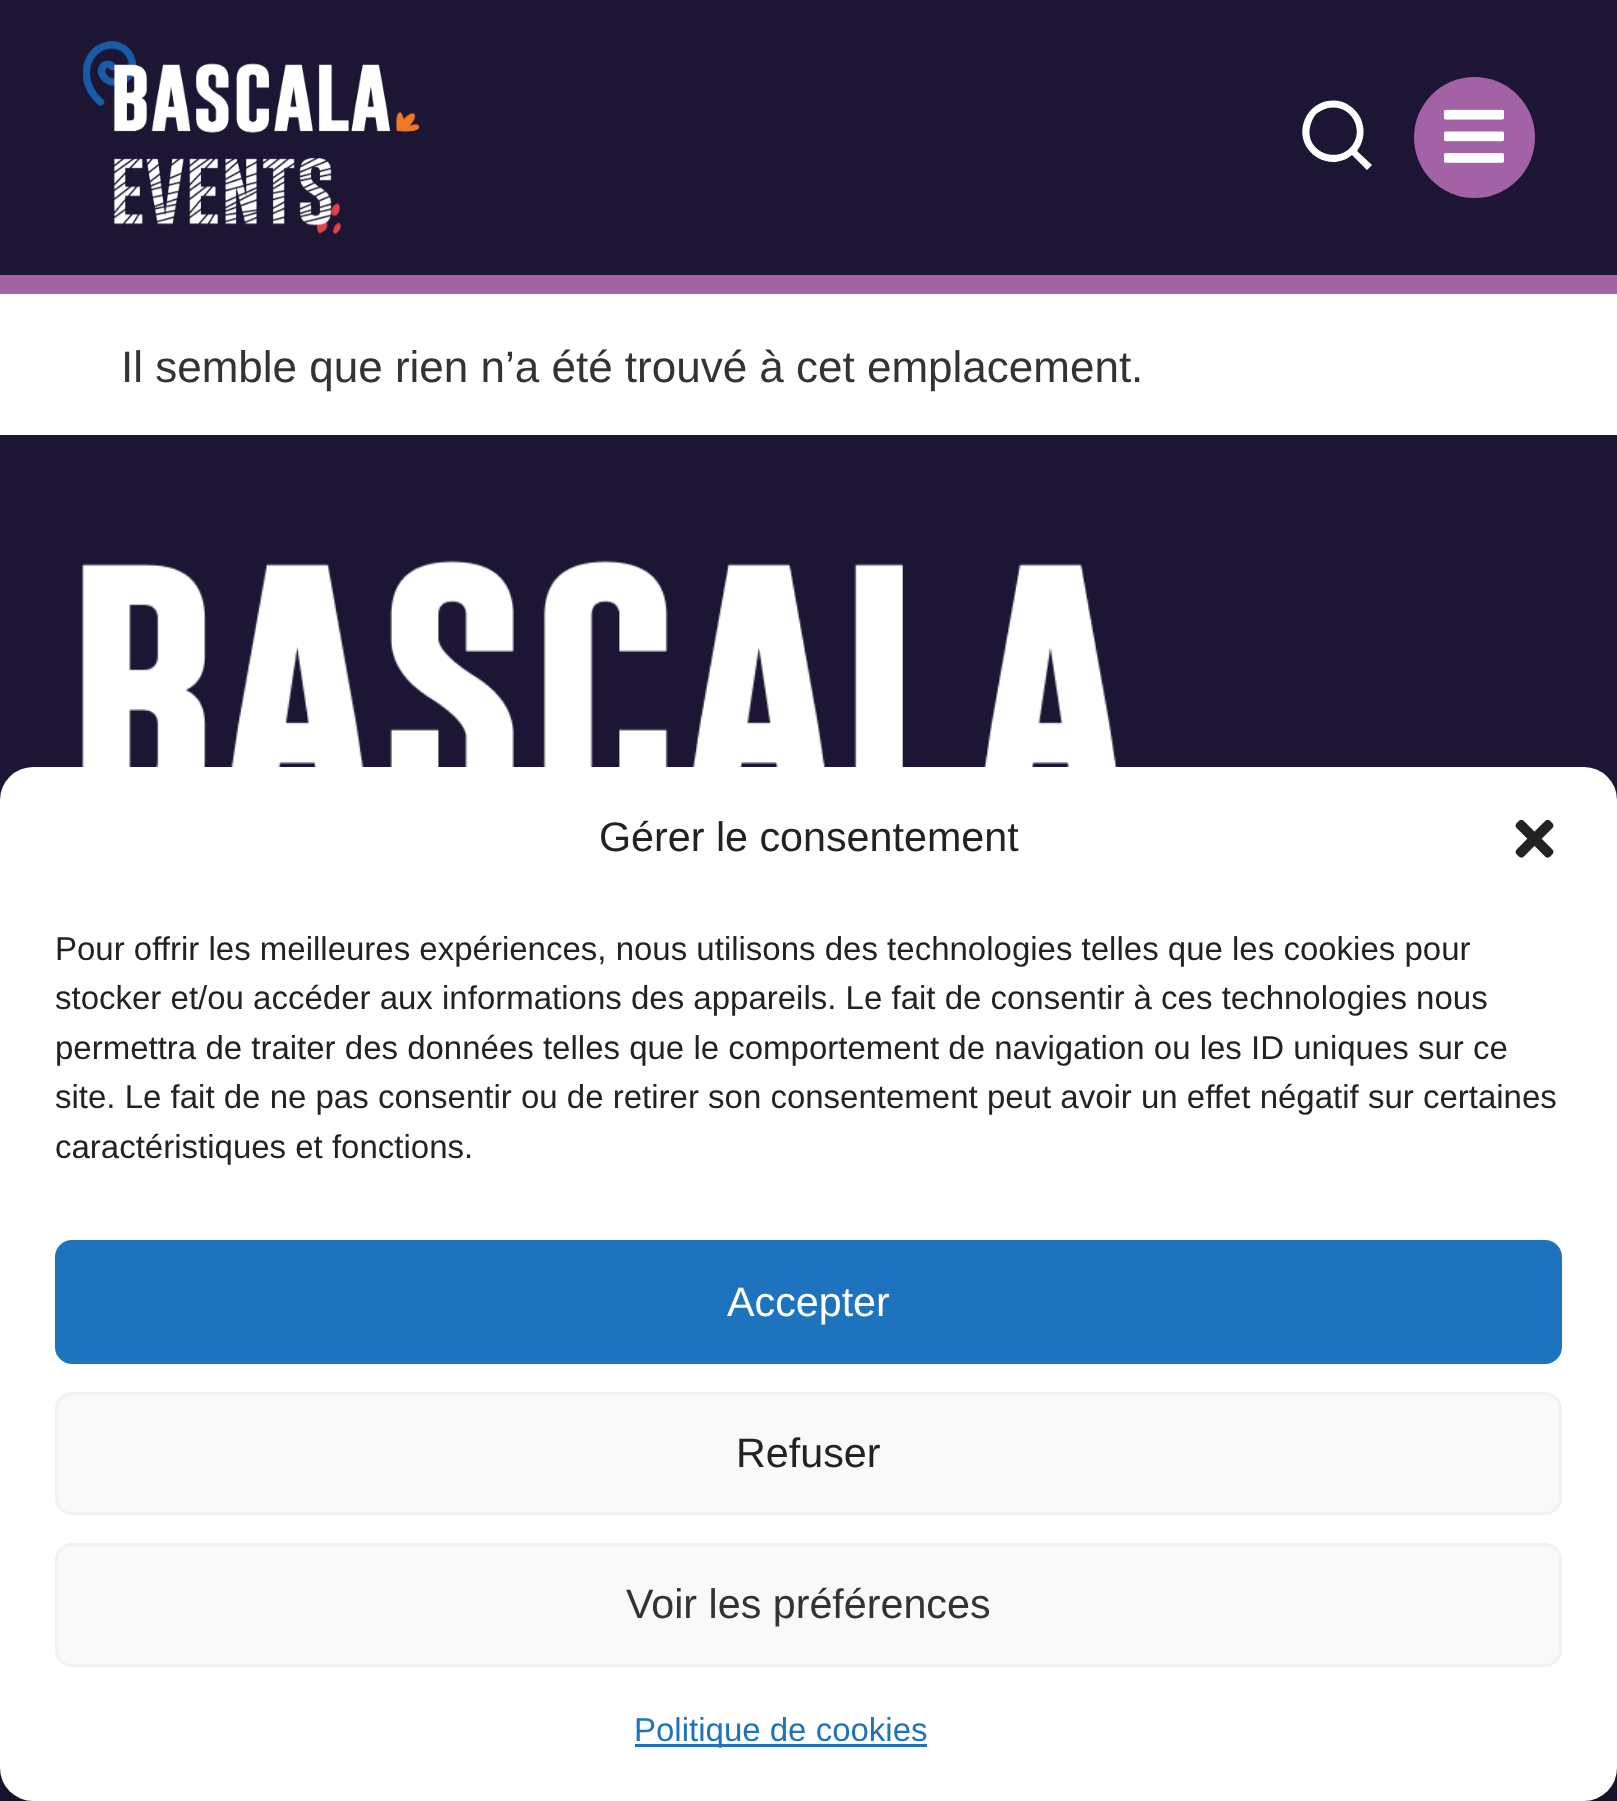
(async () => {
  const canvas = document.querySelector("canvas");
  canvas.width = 1617;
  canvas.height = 1801;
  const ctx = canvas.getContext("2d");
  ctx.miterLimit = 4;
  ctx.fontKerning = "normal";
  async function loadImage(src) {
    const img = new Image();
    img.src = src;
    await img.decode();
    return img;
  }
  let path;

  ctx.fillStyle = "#ffffff";
  ctx.fillRect(0, 0, 1617, 1801);
  ctx.fillStyle = "#1c1533";
  ctx.fillRect(0, 0, 1617, 275);
  ctx.fillStyle = "#a262a5";
  ctx.fillRect(0, 275, 1617, 19);
  ctx.drawImage(await loadImage("img/1.png"), 83, 41, 337, 193);
  ctx.fillStyle = "#ffffff";
  path = new Path2D("M1357 151L1372 165L1367 170L1352 155C1328 175 1292 149 1305 119C1308 112 1314 106 1321 103C1331 99 1342 100 1350 106C1365 116 1368 137 1357 151ZM1350 148C1366 132 1352 103 1328 108C1324 109 1320 111 1316 114C1313 118 1311 122 1310 127C1305 150 1334 164 1350 148Z");
  ctx.fill(path);
  ctx.fillStyle = "#a262a5";
  ctx.beginPath();
  ctx.arc(1474.5, 137.5, 60.5, 0, Math.PI * 2);
  ctx.fill();
  ctx.drawImage(await loadImage("img/2.png"), 1444, 109, 60, 54);
  ctx.fillStyle = "#1c1533";
  ctx.fillRect(0, 435, 1617, 1366);
  ctx.drawImage(await loadImage("img/3.png"), 82, 560, 1036, 207);
  ctx.fillStyle = "rgba(0, 0, 0, 0.23)";
  ctx.filter = "blur(8px)";
  ctx.beginPath();
  ctx.roundRect(0, 784, 1617, 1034, 33);
  ctx.fill();
  ctx.filter = "none";
  ctx.fillStyle = "#ffffff";
  ctx.beginPath();
  ctx.roundRect(0, 767, 1617, 1034, 33);
  ctx.fill();
  ctx.drawImage(await loadImage("img/4.png"), 1515, 819, 39, 39);
  ctx.fillStyle = "#1e73be";
  ctx.beginPath();
  ctx.roundRect(56.5, 1241.5, 1504, 121, 15.5);
  ctx.fill();
  ctx.strokeStyle = "#1e73be";
  ctx.lineWidth = 3;
  ctx.stroke();
  ctx.fillStyle = "#f9f9f9";
  ctx.beginPath();
  ctx.roundRect(56.5, 1393.5, 1504, 120, 15.5);
  ctx.fill();
  ctx.strokeStyle = "#f2f2f2";
  ctx.stroke();
  ctx.beginPath();
  ctx.roundRect(56.5, 1544.5, 1504, 121, 15.5);
  ctx.fill();
  ctx.stroke();
  ctx.fillStyle = "#1e73be";
  ctx.fillRect(635, 1744, 292, 3);
  ctx.font = "44px Liberation Sans";
  ctx.fillStyle = "#333333";
  ctx.fillText("Il semble que rien n’a été trouvé à cet emplacement.", 121, 382);
  ctx.font = "41.25px Liberation Sans";
  ctx.fillStyle = "#222222";
  ctx.fillText("Gérer le consentement", 599, 851);
  ctx.font = "33px Liberation Sans";
  for (const [text, x, y] of [
    ["Pour offrir les meilleures expériences, nous utilisons des technologies telles que les cookies pour", 55, 960],
    ["stocker et/ou accéder aux informations des appareils. Le fait de consentir à ces technologies nous", 55, 1009],
    ["permettra de traiter des données telles que le comportement de navigation ou les ID uniques sur ce", 55, 1059],
    ["site. Le fait de ne pas consentir ou de retirer son consentement peut avoir un effet négatif sur certaines", 55, 1108],
    ["caractéristiques et fonctions.", 55, 1158],
  ]) {
    ctx.fillText(text, x, y);
  }
  ctx.font = "41.25px Liberation Sans";
  ctx.fillStyle = "#ffffff";
  ctx.fillText("Accepter", 727, 1316);
  ctx.fillStyle = "#222222";
  ctx.fillText("Refuser", 736, 1467);
  ctx.fillStyle = "#333333";
  ctx.fillText("Voir les préférences", 626, 1618);
  ctx.font = "33px Liberation Sans";
  ctx.fillStyle = "#1e73be";
  ctx.fillText("Politique de cookies", 634, 1741);
})();
